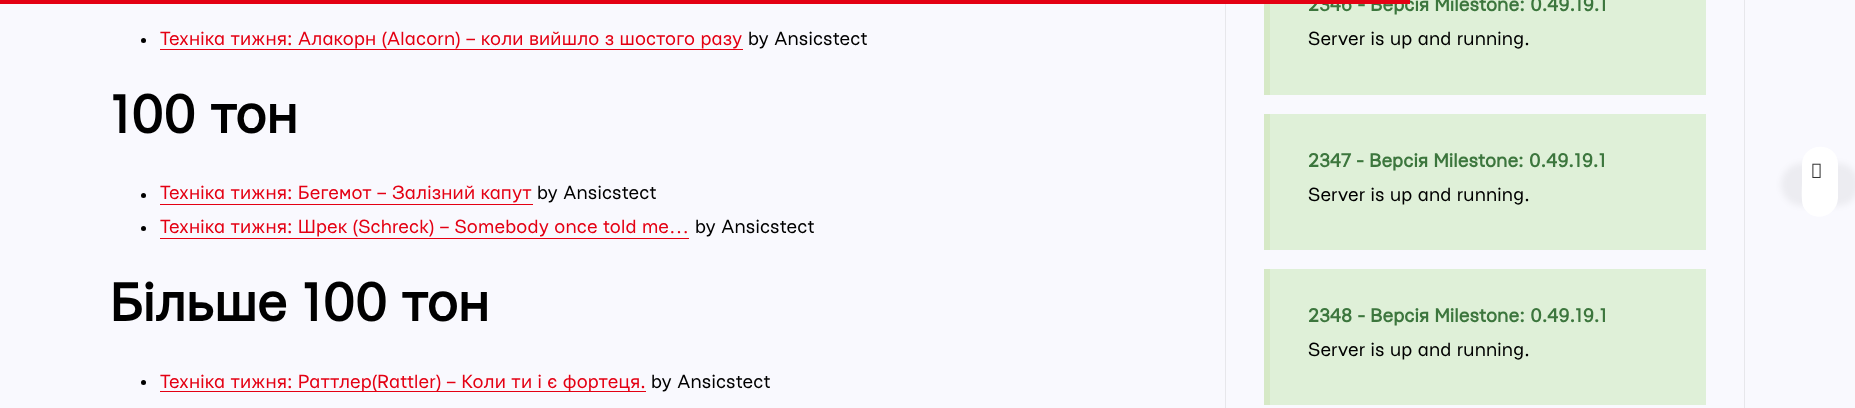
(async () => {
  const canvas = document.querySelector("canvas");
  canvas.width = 1855;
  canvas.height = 408;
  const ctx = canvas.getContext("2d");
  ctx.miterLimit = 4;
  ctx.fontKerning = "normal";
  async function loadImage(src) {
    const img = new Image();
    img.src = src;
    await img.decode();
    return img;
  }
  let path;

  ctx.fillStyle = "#f9f9fe";
  ctx.fillRect(0, 0, 1855, 408);
  ctx.fillStyle = "#000000";
  ctx.beginPath();
  ctx.arc(143.5, 40.5, 2.5, 0, Math.PI * 2);
  ctx.fill();
  ctx.fillStyle = "#e40013";
  ctx.fillRect(160, 49, 583, 1);
  ctx.fillStyle = "#000000";
  ctx.beginPath();
  ctx.arc(143.5, 195.5, 2.5, 0, Math.PI * 2);
  ctx.fill();
  ctx.fillStyle = "#e40013";
  ctx.fillRect(160, 204, 373, 1);
  ctx.fillStyle = "#000000";
  ctx.beginPath();
  ctx.arc(143.5, 228.5, 2.5, 0, Math.PI * 2);
  ctx.fill();
  ctx.fillStyle = "#e40013";
  ctx.fillRect(160, 238, 529, 1);
  ctx.fillStyle = "#000000";
  ctx.beginPath();
  ctx.arc(143.5, 382.5, 2.5, 0, Math.PI * 2);
  ctx.fill();
  ctx.fillStyle = "#e40013";
  ctx.fillRect(160, 391, 486, 1);
  ctx.strokeStyle = "#e7e7eb";
  ctx.strokeRect(1225.5, -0.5, 519, 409);
  for (const [x, y, w, h, color] of [
    [1270, 0, 436, 95, "#dff0d8"],
    [1264, 0, 6, 95, "#d6e9c6"],
    [1270, 114, 436, 136, "#dff0d8"],
    [1264, 114, 6, 136, "#d6e9c6"],
    [1270, 269, 436, 136, "#dff0d8"],
    [1264, 269, 6, 136, "#d6e9c6"],
  ]) {
    ctx.fillStyle = color;
    ctx.fillRect(x, y, w, h);
  }
  ctx.fillStyle = "rgba(0, 0, 0, 0.05)";
  ctx.filter = "blur(3px)";
  ctx.beginPath();
  ctx.roundRect(1781, 163, 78, 43, 21.5);
  ctx.fill();
  ctx.filter = "none";
  ctx.fillStyle = "#ffffff";
  path = new Path2D("M1838 164V198C1837 218 1811 224 1803 206C1801 199 1802 188 1802 181V164C1803 141 1838 141 1838 164Z");
  ctx.fill(path);
  ctx.drawImage(await loadImage("img/1.png"), 1812, 163, 9, 15);
  ctx.letterSpacing = "0.2px";
  ctx.font = "20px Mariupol";
  ctx.fillStyle = "#e40013";
  ctx.fillText("Техніка тижня: Алакорн (Alacorn) – коли вийшло з шостого разу", 160, 45);
  ctx.fillStyle = "#000000";
  ctx.fillText("by Ansicstect", 748, 45);
  ctx.font = "bold 56.25px Mariupol";
  ctx.fillText("100 тон", 110, 133);
  ctx.font = "20px Mariupol";
  ctx.fillStyle = "#e40013";
  ctx.fillText("Техніка тижня: Бегемот – Залізний капут", 160, 199);
  ctx.fillStyle = "#000000";
  ctx.fillText("by Ansicstect", 537, 199);
  ctx.fillStyle = "#e40013";
  ctx.fillText("Техніка тижня: Шрек (Schreck) – Somebody once told me", 160, 233);
  ctx.fillStyle = "#000000";
  ctx.fillText("by Ansicstect", 695, 233);
  ctx.font = "20px Liberation Serif";
  ctx.fillStyle = "#e40013";
  ctx.fillText("…", 669, 233);
  ctx.font = "bold 56.25px Mariupol";
  ctx.fillStyle = "#000000";
  ctx.fillText("Більше 100 тон", 110, 321);
  ctx.font = "20px Mariupol";
  ctx.fillStyle = "#e40013";
  ctx.fillText("Техніка тижня: Раттлер(Rattler) – Коли ти і є фортеця.", 160, 388);
  ctx.fillStyle = "#000000";
  ctx.fillText("by Ansicstect", 651, 388);
  ctx.font = "bold 20px Mariupol";
  ctx.fillStyle = "#3c763d";
  ctx.fillText("2346 - Версія Milestone: 0.49.19.1", 1308, 11);
  ctx.fillStyle = "#e40013";
  ctx.fillRect(0, 0, 1410, 4);
  ctx.font = "20px Mariupol";
  ctx.fillStyle = "#000000";
  ctx.fillText("Server is up and running.", 1308, 45);
  ctx.font = "bold 20px Mariupol";
  ctx.fillStyle = "#3c763d";
  ctx.fillText("2347 - Версія Milestone: 0.49.19.1", 1308, 167);
  ctx.font = "20px Mariupol";
  ctx.fillStyle = "#000000";
  ctx.fillText("Server is up and running.", 1308, 201);
  ctx.font = "bold 20px Mariupol";
  ctx.fillStyle = "#3c763d";
  ctx.fillText("2348 - Версія Milestone: 0.49.19.1", 1308, 322);
  ctx.font = "20px Mariupol";
  ctx.fillStyle = "#000000";
  ctx.fillText("Server is up and running.", 1308, 356);
})();
